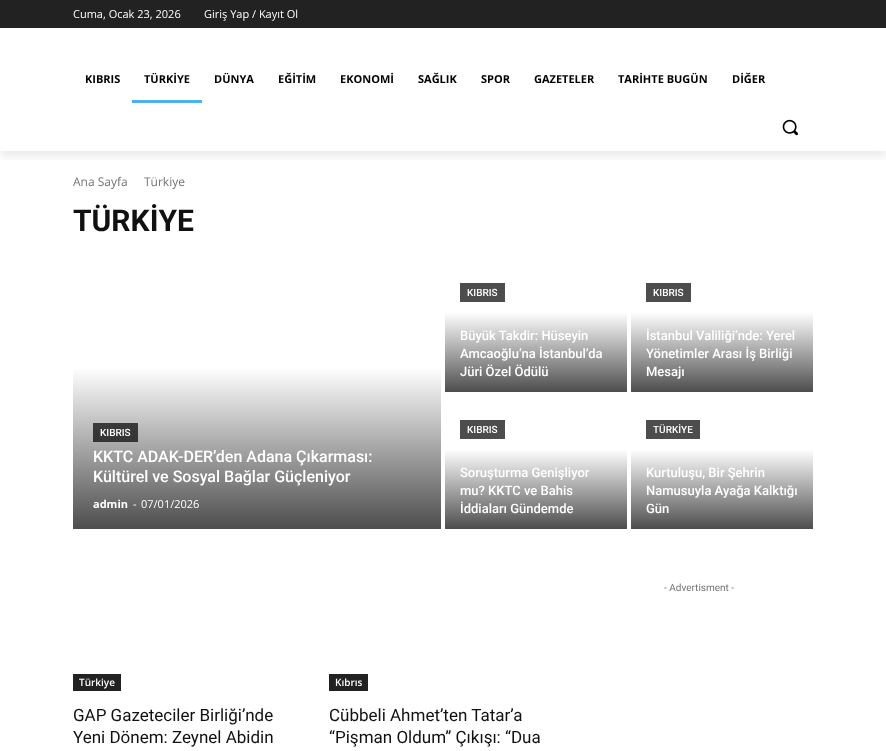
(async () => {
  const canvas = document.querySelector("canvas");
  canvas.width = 886;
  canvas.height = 751;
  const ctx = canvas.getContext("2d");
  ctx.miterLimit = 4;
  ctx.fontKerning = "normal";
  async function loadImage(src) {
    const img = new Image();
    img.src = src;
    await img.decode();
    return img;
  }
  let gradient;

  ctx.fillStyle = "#ffffff";
  ctx.fillRect(0, 0, 886, 751);
  ctx.fillStyle = "#222222";
  ctx.fillRect(0, 0, 886, 28);
  ctx.save();
  ctx.beginPath();
  ctx.rect(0, 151, 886, 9);
  ctx.clip();
  ctx.fillStyle = "rgba(0, 0, 0, 0.08)";
  ctx.filter = "blur(4px)";
  ctx.beginPath();
  ctx.rect(0, 6, 886, 151);
  ctx.fill();
  ctx.filter = "none";
  ctx.restore();
  ctx.fillStyle = "#4db2ec";
  ctx.fillRect(132, 100, 70, 3);
  ctx.drawImage(await loadImage("img/1.png"), 782, 119, 16, 17);
  gradient = ctx.createLinearGradient(257, 529, 257, 259);
  gradient.addColorStop(0, "#4d4d4d");
  gradient.addColorStop(0.6, "#ffffff");
  gradient.addColorStop(1, "#ffffff");
  ctx.fillStyle = gradient;
  ctx.fillRect(73, 369, 368, 160);
  gradient = ctx.createLinearGradient(257, 529, 257, 259);
  gradient.addColorStop(0, "#171717");
  gradient.addColorStop(0.6, "#4d4d4d");
  gradient.addColorStop(1, "#4d4d4d");
  ctx.fillStyle = gradient;
  ctx.fillRect(93, 423, 45, 19);
  ctx.fillStyle = "#4d4d4d";
  ctx.fillRect(460, 283, 45, 19);
  gradient = ctx.createLinearGradient(536, 392, 536, 259);
  gradient.addColorStop(0, "#4d4d4d");
  gradient.addColorStop(0.6, "#ffffff");
  gradient.addColorStop(1, "#ffffff");
  ctx.fillStyle = gradient;
  ctx.fillRect(445, 313, 182, 79);
  ctx.fillStyle = "#4d4d4d";
  ctx.fillRect(646, 283, 45, 19);
  gradient = ctx.createLinearGradient(722, 392, 722, 259);
  gradient.addColorStop(0, "#4d4d4d");
  gradient.addColorStop(0.6, "#ffffff");
  gradient.addColorStop(1, "#ffffff");
  ctx.fillStyle = gradient;
  ctx.fillRect(631, 313, 182, 79);
  ctx.fillStyle = "#4d4d4d";
  ctx.fillRect(460, 420, 45, 19);
  gradient = ctx.createLinearGradient(536, 529, 536, 396);
  gradient.addColorStop(0, "#4d4d4d");
  gradient.addColorStop(0.6, "#ffffff");
  gradient.addColorStop(1, "#ffffff");
  ctx.fillStyle = gradient;
  ctx.fillRect(445, 450, 182, 79);
  ctx.fillStyle = "#4d4d4d";
  ctx.fillRect(646, 420, 54, 19);
  gradient = ctx.createLinearGradient(722, 529, 722, 396);
  gradient.addColorStop(0, "#4d4d4d");
  gradient.addColorStop(0.6, "#ffffff");
  gradient.addColorStop(1, "#ffffff");
  ctx.fillStyle = gradient;
  ctx.fillRect(631, 450, 182, 79);
  ctx.fillStyle = "#222222";
  ctx.fillRect(73, 674, 48, 17);
  ctx.fillRect(329, 674, 39, 17);
  ctx.font = "11px Open Sans";
  ctx.fillStyle = "#ffffff";
  ctx.fillText("Cuma, Ocak 23, 2026", 73, 18);
  ctx.fillText("Giriş Yap / Kayıt Ol", 204, 18);
  ctx.font = "bold 11px Open Sans";
  ctx.fillStyle = "#000000";
  for (const [text, x, y] of [
    ["KIBRIS", 85, 83],
    ["TÜRKİYE", 144, 83],
    ["DÜNYA", 214, 83],
    ["EĞİTİM", 278, 83],
    ["EKONOMİ", 340, 83],
    ["SAĞLIK", 418, 83],
    ["SPOR", 481, 83],
    ["GAZETELER", 534, 83],
    ["TARİHTE BUGÜN", 618, 83],
    ["DİĞER", 732, 83],
  ]) {
    ctx.fillText(text, x, y);
  }
  ctx.font = "12px Open Sans";
  ctx.fillStyle = "#747474";
  ctx.fillText("Ana Sayfa", 73, 186);
  ctx.fillText("Türkiye", 144, 186);
  ctx.font = "bold 30px Roboto";
  ctx.fillStyle = "#111111";
  ctx.fillText("TÜRKİYE", 73, 231);
  ctx.font = "500 10px Roboto";
  ctx.fillStyle = "#ffffff";
  ctx.fillText("KIBRIS", 100, 436);
  ctx.font = "500 16px Roboto";
  ctx.fillText("KKTC ADAK-DER’den Adana Çıkarması:", 93, 462);
  ctx.fillText("Kültürel ve Sosyal Bağlar Güçleniyor", 93, 482);
  ctx.font = "bold 11px Open Sans";
  ctx.fillText("admin", 93, 508);
  ctx.font = "11px Open Sans";
  ctx.fillText("-", 133, 508);
  ctx.fillText("07/01/2026", 141, 508);
  ctx.font = "500 10px Roboto";
  ctx.fillText("KIBRIS", 467, 296);
  ctx.font = "500 13px Roboto";
  for (const [text, x, y] of [
    ["Büyük Takdir: Hüseyin", 460, 340],
    ["Amcaoğlu’na İstanbul’da", 460, 358],
    ["Jüri Özel Ödülü", 460, 376],
  ]) {
    ctx.fillText(text, x, y);
  }
  ctx.font = "500 10px Roboto";
  ctx.fillText("KIBRIS", 653, 296);
  ctx.font = "500 13px Roboto";
  for (const [text, x, y] of [
    ["İstanbul Valiliği’nde: Yerel", 646, 340],
    ["Yönetimler Arası İş Birliği", 646, 358],
    ["Mesajı", 646, 376],
  ]) {
    ctx.fillText(text, x, y);
  }
  ctx.font = "500 10px Roboto";
  ctx.fillText("KIBRIS", 467, 433);
  ctx.font = "500 13px Roboto";
  for (const [text, x, y] of [
    ["Soruşturma Genişliyor", 460, 477],
    ["mu? KKTC ve Bahis", 460, 495],
    ["İddiaları Gündemde", 460, 513],
  ]) {
    ctx.fillText(text, x, y);
  }
  ctx.font = "500 10px Roboto";
  ctx.fillText("TÜRKİYE", 653, 433);
  ctx.font = "500 13px Roboto";
  for (const [text, x, y] of [
    ["Kurtuluşu, Bir Şehrin", 646, 477],
    ["Namusuyla Ayağa Kalktığı", 646, 495],
    ["Gün", 646, 513],
  ]) {
    ctx.fillText(text, x, y);
  }
  ctx.font = "10px Roboto";
  ctx.fillStyle = "#747474";
  ctx.fillText("- Advertisment -", 664, 591);
  ctx.font = "600 10px Open Sans";
  ctx.fillStyle = "#ffffff";
  ctx.fillText("Türkiye", 79, 686);
  ctx.font = "17px Roboto";
  ctx.fillStyle = "#111111";
  ctx.fillText("GAP Gazeteciler Birliği’nde", 73, 721);
  ctx.fillText("Yeni Dönem: Zeynel Abidin", 73, 743);
  ctx.font = "600 10px Open Sans";
  ctx.fillStyle = "#ffffff";
  ctx.fillText("Kıbrıs", 335, 686);
  ctx.font = "17px Roboto";
  ctx.fillStyle = "#111111";
  ctx.fillText("Cübbeli Ahmet’ten Tatar’a", 329, 721);
  ctx.fillText("“Pişman Oldum” Çıkışı: “Dua", 329, 743);
})();
